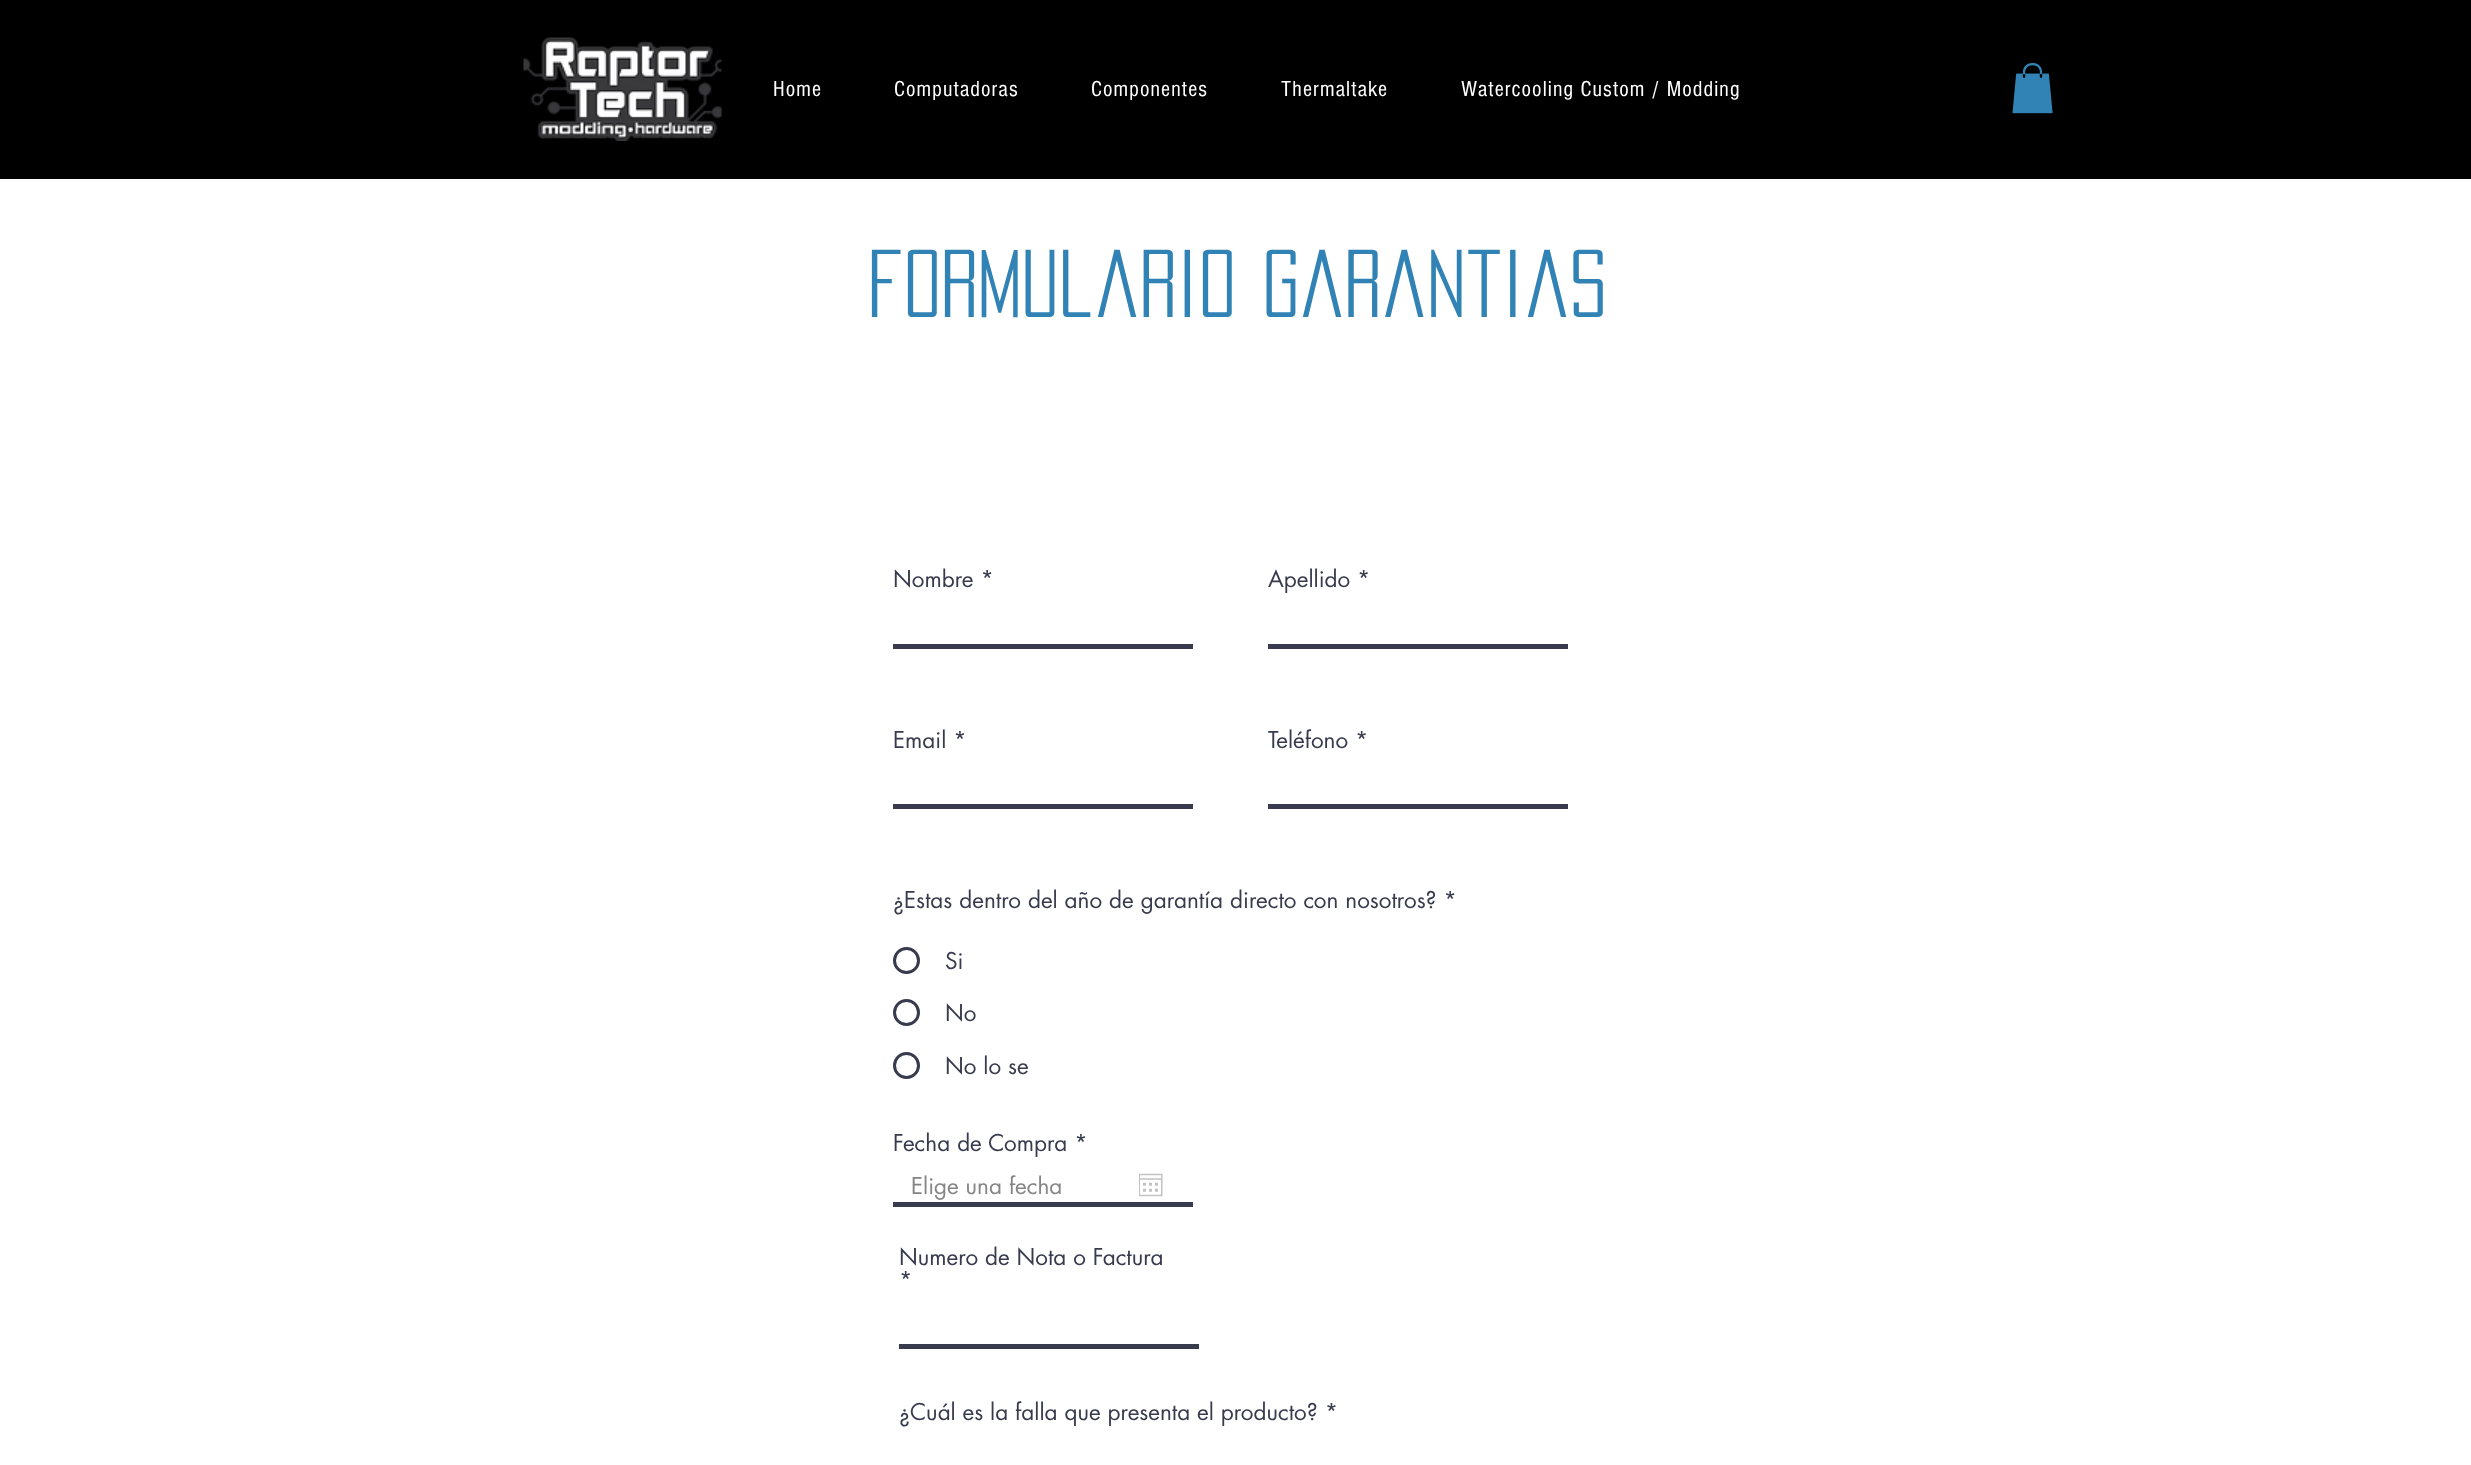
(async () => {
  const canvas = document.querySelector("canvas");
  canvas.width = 2471;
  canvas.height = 1465;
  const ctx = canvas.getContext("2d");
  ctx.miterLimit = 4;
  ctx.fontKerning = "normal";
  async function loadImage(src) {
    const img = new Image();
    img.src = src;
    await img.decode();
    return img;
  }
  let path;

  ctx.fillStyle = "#ffffff";
  ctx.fillRect(0, 0, 2471, 1465);
  ctx.fillStyle = "#000000";
  ctx.fillRect(0, 0, 2471, 179);
  ctx.drawImage(await loadImage("img/1.png"), 523, 37, 199, 104);
  ctx.drawImage(await loadImage("img/2.png"), 2012, 63, 41, 51);
  for (const [x, y, w, h, color] of [
    [893, 644, 300, 5, "#373b4d"],
    [1268, 644, 300, 5, "#373b4d"],
    [893, 804, 300, 5, "#373b4d"],
    [1268, 804, 300, 5, "#373b4d"],
  ]) {
    ctx.fillStyle = color;
    ctx.fillRect(x, y, w, h);
  }
  ctx.beginPath();
  ctx.arc(906.5, 960.5, 12, 0, Math.PI * 2);
  ctx.strokeStyle = "#373b4d";
  ctx.lineWidth = 3;
  ctx.stroke();
  ctx.beginPath();
  ctx.arc(906.5, 1012.5, 12, 0, Math.PI * 2);
  ctx.stroke();
  ctx.beginPath();
  ctx.arc(906.5, 1065.5, 12, 0, Math.PI * 2);
  ctx.stroke();
  ctx.fillRect(893, 1202, 300, 5);
  ctx.drawImage(await loadImage("img/3.png"), 1139, 1173, 24, 24);
  ctx.fillRect(899, 1344, 300, 5);
  ctx.letterSpacing = "1.1px";
  ctx.font = "22.5px 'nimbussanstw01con'";
  ctx.fillStyle = "#ffffff";
  ctx.fillText("Home", 773, 96);
  ctx.fillStyle = "#000000";
  path = new Path2D("M763.5 90L774 78L775.5 79.5L766 90L775.5 100.5L774 102Z");
  ctx.fill(path);
  ctx.fillStyle = "#ffffff";
  for (const [text, x, y] of [
    ["Computadoras", 894, 96],
    ["Componentes", 1091, 96],
    ["Thermaltake", 1281, 96],
    ["Watercooling Custom / Modding", 1461, 96],
  ]) {
    ctx.fillText(text, x, y);
  }
  ctx.letterSpacing = "0px";
  ctx.font = "84px 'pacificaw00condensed'";
  ctx.fillStyle = "#3182b5";
  ctx.fillText("formulario Garantias", 868, 317);
  ctx.font = "22.5px futura";
  ctx.fillStyle = "#373b4d";
  for (const [text, x, y] of [
    ["Nombre *", 893, 587],
    ["Apellido *", 1268, 587],
    ["Email *", 893, 748],
    ["Teléfono *", 1268, 748],
    ["¿Estas dentro del año de garantía directo con nosotros? *", 893, 908],
    ["Si", 945, 969],
    ["No", 945, 1021],
    ["No lo se", 945, 1074],
    ["Fecha de Compra *", 893, 1151],
  ]) {
    ctx.fillText(text, x, y);
  }
  ctx.fillStyle = "#858585";
  ctx.fillText("Elige una fecha", 911, 1194);
  ctx.fillStyle = "#373b4d";
  for (const [text, x, y] of [
    ["Numero de Nota o Factura", 899, 1265],
    ["*", 899, 1288],
    ["¿Cuál es la falla que presenta el producto? *", 899, 1420],
  ]) {
    ctx.fillText(text, x, y);
  }
})();
